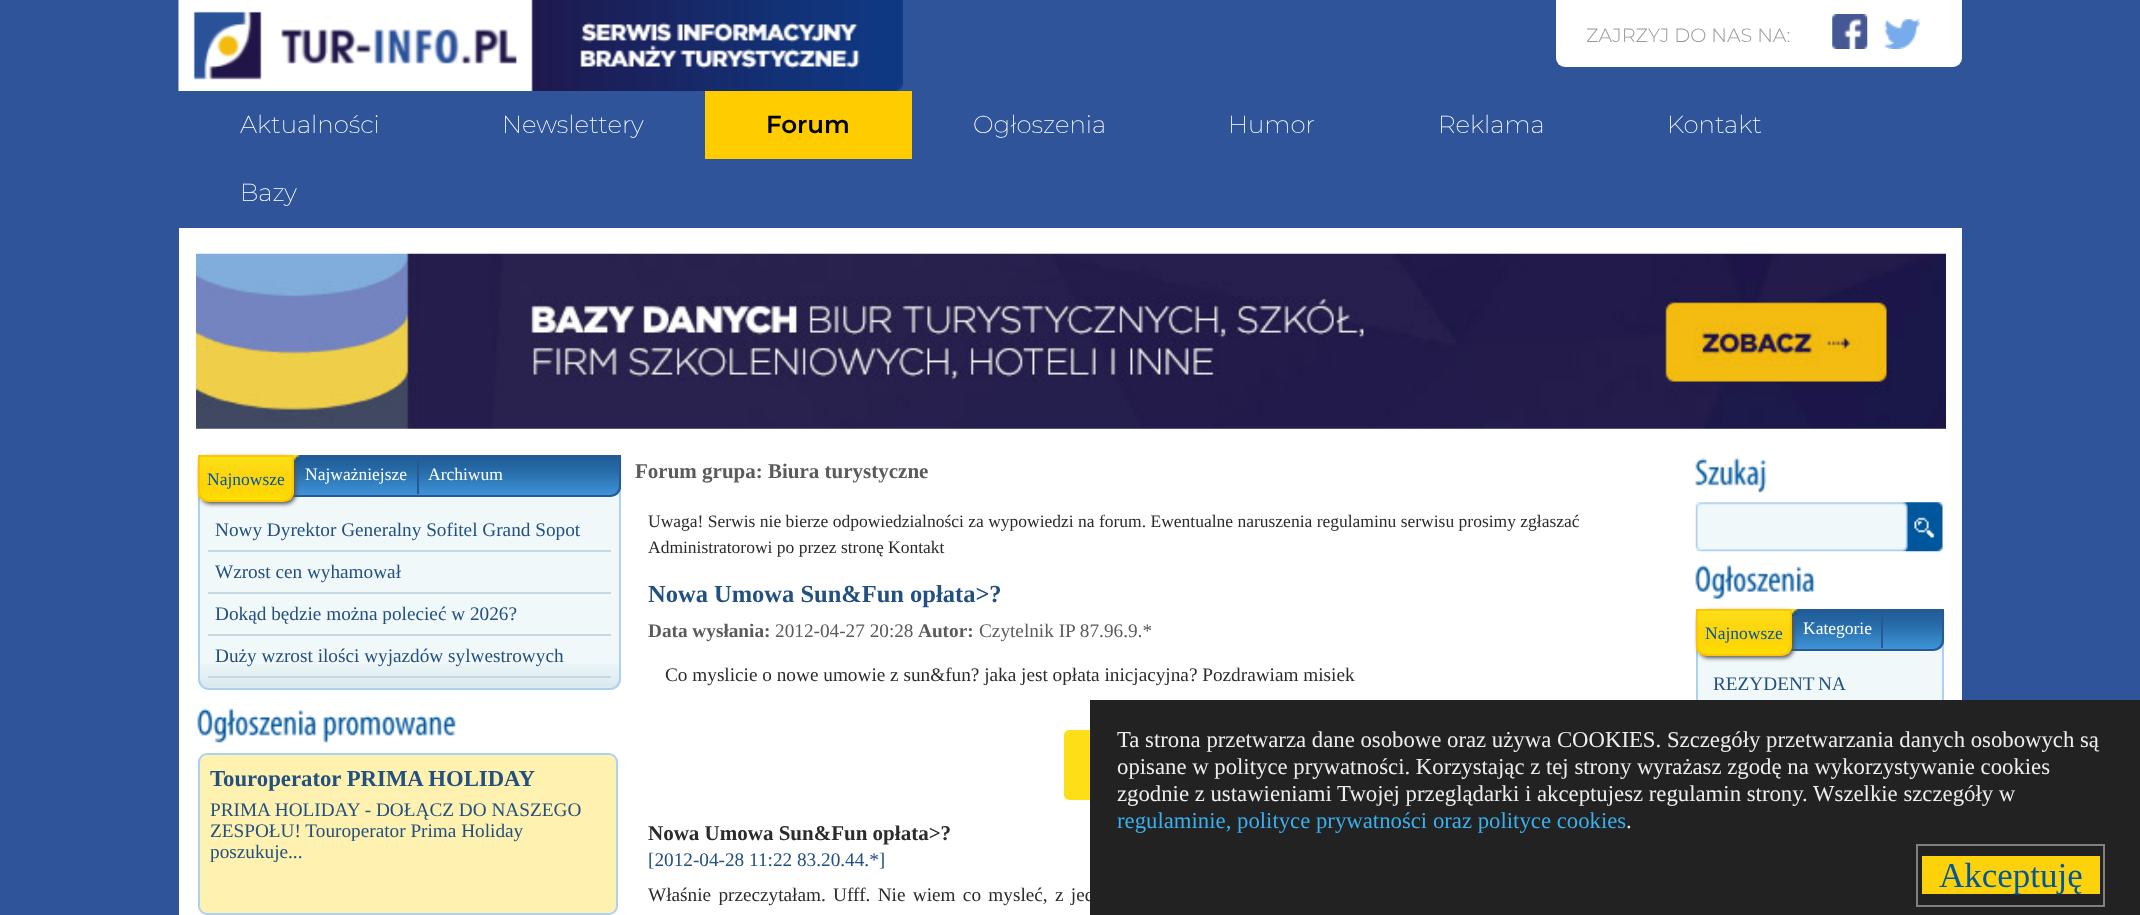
(async () => {
  const canvas = document.querySelector("canvas");
  canvas.width = 2140;
  canvas.height = 915;
  const ctx = canvas.getContext("2d");
  ctx.miterLimit = 4;
  ctx.fontKerning = "normal";
  async function loadImage(src) {
    const img = new Image();
    img.src = src;
    await img.decode();
    return img;
  }

  ctx.fillStyle = "#2f549a";
  ctx.fillRect(0, 0, 2140, 915);
  ctx.drawImage(await loadImage("img/1.png"), 178, 0, 725, 91);
  ctx.fillStyle = "#ffffff";
  ctx.beginPath();
  ctx.roundRect(1556, 0, 406, 67, [0, 0, 9, 9]);
  ctx.fill();
  ctx.drawImage(await loadImage("img/2.png"), 1832, 14, 36, 35);
  ctx.drawImage(await loadImage("img/3.png"), 1884, 19, 36, 30);
  ctx.fillStyle = "#ffcc00";
  ctx.fillRect(705, 91, 207, 68);
  ctx.fillStyle = "#ffffff";
  ctx.fillRect(179, 228, 1783, 687);
  ctx.drawImage(await loadImage("img/4.png"), 196, 253, 1750, 176);
  ctx.fillStyle = "#f0f8fa";
  ctx.beginPath();
  ctx.roundRect(198, 455, 423, 235, 11);
  ctx.fill();
  ctx.drawImage(await loadImage("img/5.png"), 198, 664, 423, 24);
  ctx.beginPath();
  ctx.roundRect(199, 456, 421, 233, 10);
  ctx.strokeStyle = "#acd1f1";
  ctx.lineWidth = 2;
  ctx.stroke();
  ctx.drawImage(await loadImage("img/6.png"), 197, 457, 425, 39);
  ctx.beginPath();
  ctx.roundRect(199, 456, 421, 40, [0, 0, 10, 10]);
  ctx.strokeStyle = "#275993";
  ctx.stroke();
  ctx.fillStyle = "#555555";
  ctx.filter = "blur(2px)";
  ctx.beginPath();
  ctx.roundRect(200, 457, 96, 47, 11);
  ctx.fill();
  ctx.filter = "none";
  ctx.drawImage(await loadImage("img/7.png"), 197, 457, 97, 44);
  ctx.beginPath();
  ctx.roundRect(199, 456, 94, 45, [0, 0, 10, 10]);
  ctx.strokeStyle = "#fec600";
  ctx.stroke();
  ctx.drawImage(await loadImage("img/8.png"), 294, 455, 7, 7);
  for (const [x, y, w, h, color] of [
    [417, 455, 2, 39, "#275993"],
    [208, 550, 403, 2, "#c8d8e3"],
    [208, 592, 403, 2, "#c8d8e3"],
    [208, 634, 403, 2, "#c8d8e3"],
    [208, 676, 403, 2, "#c8d8e3"],
  ]) {
    ctx.fillStyle = color;
    ctx.fillRect(x, y, w, h);
  }
  ctx.drawImage(await loadImage("img/9.png"), 197, 708, 259, 35);
  ctx.fillStyle = "#fff1af";
  ctx.beginPath();
  ctx.roundRect(199, 754, 418, 160, 8);
  ctx.fill();
  ctx.strokeStyle = "#acd1f1";
  ctx.stroke();
  ctx.fillStyle = "#fddf17";
  ctx.beginPath();
  ctx.roundRect(1064, 730, 166, 70, 5);
  ctx.fill();
  ctx.drawImage(await loadImage("img/10.png"), 1695, 458, 72, 35);
  ctx.drawImage(await loadImage("img/11.png"), 1695, 502, 211, 50);
  ctx.drawImage(await loadImage("img/12.png"), 1905, 502, 38, 50);
  ctx.drawImage(await loadImage("img/13.png"), 1695, 564, 120, 35);
  ctx.fillStyle = "#f0f8fa";
  ctx.fillRect(1698, 647, 244, 53);
  ctx.strokeRect(1697, 610, 246, 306);
  ctx.drawImage(await loadImage("img/14.png"), 1695, 611, 250, 39);
  ctx.beginPath();
  ctx.roundRect(1697, 610, 246, 40, [0, 0, 10, 10]);
  ctx.strokeStyle = "#275993";
  ctx.stroke();
  ctx.fillStyle = "#555555";
  ctx.filter = "blur(2px)";
  ctx.beginPath();
  ctx.roundRect(1698, 611, 96, 47, 11);
  ctx.fill();
  ctx.filter = "none";
  ctx.drawImage(await loadImage("img/7.png"), 1695, 611, 97, 44);
  ctx.beginPath();
  ctx.roundRect(1697, 610, 94, 45, [0, 0, 10, 10]);
  ctx.strokeStyle = "#fec600";
  ctx.stroke();
  ctx.drawImage(await loadImage("img/8.png"), 1792, 609, 7, 7);
  ctx.fillStyle = "#275993";
  ctx.fillRect(1881, 609, 2, 39);
  ctx.font = "300 19.25px Montserrat";
  ctx.fillStyle = "#999999";
  ctx.fillText("ZAJRZYJ DO NAS NA:", 1586, 42);
  ctx.font = "200 24.5px Montserrat";
  ctx.fillStyle = "#ffffff";
  ctx.fillText("Aktualności", 240, 133);
  ctx.fillText("Newslettery", 502, 133);
  ctx.font = "600 24.5px Montserrat";
  ctx.fillStyle = "#000000";
  ctx.fillText("Forum", 766, 133);
  ctx.font = "200 24.5px Montserrat";
  ctx.fillStyle = "#ffffff";
  for (const [text, x, y] of [
    ["Ogłoszenia", 973, 133],
    ["Humor", 1228, 133],
    ["Reklama", 1438, 133],
    ["Kontakt", 1667, 133],
    ["Bazy", 240, 201],
  ]) {
    ctx.fillText(text, x, y);
  }
  ctx.font = "17.5px Liberation Serif";
  ctx.fillStyle = "#00579c";
  ctx.fillText("Najnowsze", 207, 485);
  ctx.fillStyle = "#ffffff";
  ctx.fillText("Najważniejsze", 305, 480);
  ctx.fillText("Archiwum", 428, 480);
  ctx.font = "19.25px Liberation Serif";
  ctx.fillStyle = "#225081";
  for (const [text, x, y] of [
    ["Nowy Dyrektor Generalny Sofitel Grand Sopot", 215, 536],
    ["Wzrost cen wyhamował", 215, 578],
    ["Dokąd będzie można polecieć w 2026?", 215, 620],
    ["Duży wzrost ilości wyjazdów sylwestrowych", 215, 662],
  ]) {
    ctx.fillText(text, x, y);
  }
  ctx.font = "bold 22.75px Liberation Serif";
  ctx.fillText("Touroperator PRIMA HOLIDAY", 210, 786);
  ctx.font = "19.25px Liberation Serif";
  for (const [text, x, y] of [
    ["PRIMA HOLIDAY - DOŁĄCZ DO NASZEGO", 210, 816],
    ["ZESPOŁU! Touroperator Prima Holiday", 210, 837],
    ["poszukuje...", 210, 858],
  ]) {
    ctx.fillText(text, x, y);
  }
  ctx.font = "bold 21px Liberation Serif";
  ctx.fillStyle = "#5b5b5b";
  ctx.fillText("Forum grupa: Biura turystyczne", 635, 478);
  ctx.font = "17.5px Liberation Serif";
  ctx.fillStyle = "#2b2b2b";
  ctx.fillText("Uwaga! Serwis nie bierze odpowiedzialności za wypowiedzi na forum. Ewentualne naruszenia regulaminu serwisu prosimy zgłaszać", 648, 527);
  ctx.fillText("Administratorowi po przez stronę Kontakt", 648, 553);
  ctx.font = "bold 24.5px Liberation Serif";
  ctx.fillStyle = "#225081";
  ctx.fillText("Nowa Umowa Sun&Fun opłata>?", 648, 602);
  ctx.font = "bold 19.25px Liberation Serif";
  ctx.fillStyle = "#5b5b5b";
  ctx.fillText("Data wysłania:", 648, 637);
  ctx.font = "19.25px Liberation Serif";
  ctx.fillText("2012-04-27 20:28", 775, 637);
  ctx.font = "bold 19.25px Liberation Serif";
  ctx.fillText("Autor:", 918, 637);
  ctx.font = "19.25px Liberation Serif";
  ctx.fillText("Czytelnik IP 87.96.9.*", 979, 637);
  ctx.fillStyle = "#2b2b2b";
  ctx.fillText("Co myslicie o nowe umowie z sun&fun? jaka jest opłata inicjacyjna? Pozdrawiam misiek", 665, 681);
  ctx.font = "bold 21px Liberation Serif";
  ctx.fillText("Nowa Umowa Sun&Fun opłata>?", 648, 840);
  ctx.font = "19.25px Liberation Serif";
  ctx.fillStyle = "#225081";
  ctx.fillText("[2012-04-28 11:22 83.20.44.*]", 648, 866);
  ctx.wordSpacing = "2.5px";
  ctx.fillStyle = "#2b2b2b";
  ctx.fillText("Właśnie przeczytałam. Ufff. Nie wiem co mysleć, z jed", 648, 901);
  ctx.wordSpacing = "0px";
  ctx.font = "17.5px Liberation Serif";
  ctx.fillStyle = "#00579c";
  ctx.fillText("Najnowsze", 1705, 639);
  ctx.fillStyle = "#ffffff";
  ctx.fillText("Kategorie", 1803, 634);
  ctx.wordSpacing = "-1px";
  ctx.font = "19.25px Liberation Serif";
  ctx.fillStyle = "#225081";
  ctx.fillText("REZYDENT NA", 1713, 690);
  ctx.fillStyle = "#222222";
  ctx.fillRect(1090, 700, 1050, 215);
  ctx.wordSpacing = "0px";
  ctx.font = "22.75px Liberation Serif";
  ctx.fillStyle = "#eeeeee";
  for (const [text, x, y] of [
    ["Ta strona przetwarza dane osobowe oraz używa COOKIES. Szczegóły przetwarzania danych osobowych są", 1117, 747],
    ["opisane w polityce prywatności. Korzystając z tej strony wyrażasz zgodę na wykorzystywanie cookies", 1117, 774],
    ["zgodnie z ustawieniami Twojej przeglądarki i akceptujesz regulamin strony. Wszelkie szczegóły w", 1117, 801],
  ]) {
    ctx.fillText(text, x, y);
  }
  ctx.fillStyle = "#3ab0ef";
  ctx.fillText("regulaminie, polityce prywatności oraz polityce cookies", 1117, 828);
  ctx.fillStyle = "#eeeeee";
  ctx.fillText(".", 1626, 828);
  ctx.strokeStyle = "#808080";
  ctx.strokeRect(1917, 845, 187, 61);
  ctx.fillStyle = "#fed20b";
  ctx.fillRect(1922, 856, 178, 38);
  ctx.font = "35px Liberation Serif";
  ctx.fillStyle = "#00579c";
  ctx.fillText("Akceptuję", 1939, 887);
})();
